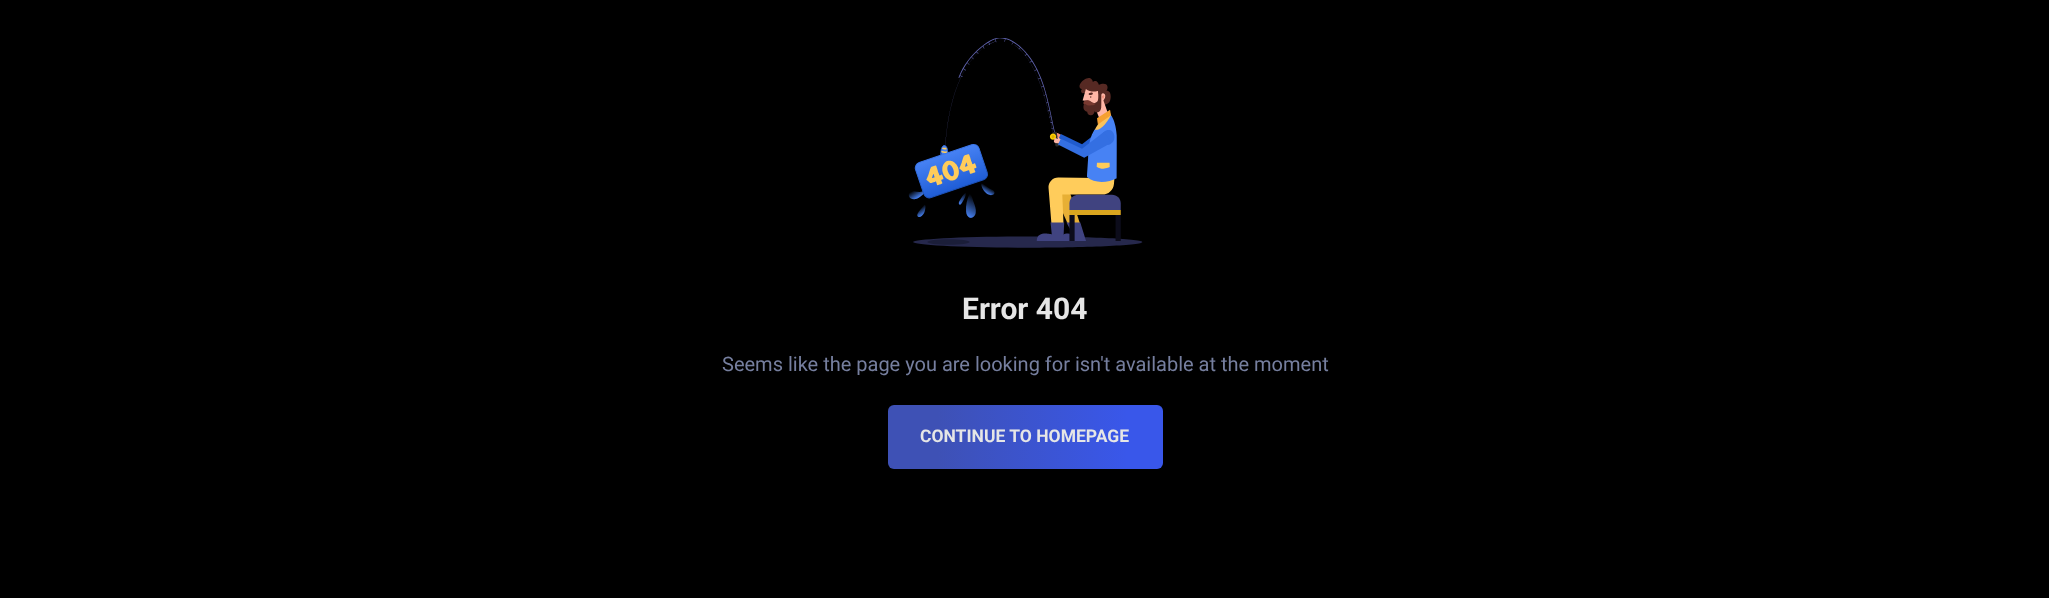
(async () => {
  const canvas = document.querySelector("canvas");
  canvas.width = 2049;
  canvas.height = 598;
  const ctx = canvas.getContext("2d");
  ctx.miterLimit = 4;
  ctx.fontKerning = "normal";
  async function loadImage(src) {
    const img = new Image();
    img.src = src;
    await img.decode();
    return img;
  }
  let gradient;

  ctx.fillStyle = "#000000";
  ctx.fillRect(0, 0, 2049, 598);
  ctx.drawImage(await loadImage("img/1.png"), 908, 38, 235, 210);
  gradient = ctx.createLinearGradient(888, 437, 1163, 437);
  gradient.addColorStop(0.18, "#3e51b5");
  gradient.addColorStop(0.87, "#3957ea");
  ctx.fillStyle = gradient;
  ctx.beginPath();
  ctx.roundRect(888, 405, 275, 64, 6);
  ctx.fill();
  ctx.font = "bold 30px Roboto";
  ctx.fillStyle = "#e6e6e6";
  ctx.fillText("Error 404", 962, 319);
  ctx.font = "20px Roboto";
  ctx.fillStyle = "#767f9f";
  ctx.fillText("Seems like the page you are looking for isn't available at the moment", 722, 371);
  ctx.font = "bold 17.5px Roboto";
  ctx.fillStyle = "#e6e6e6";
  ctx.fillText("CONTINUE TO HOMEPAGE", 920, 442);
})();
